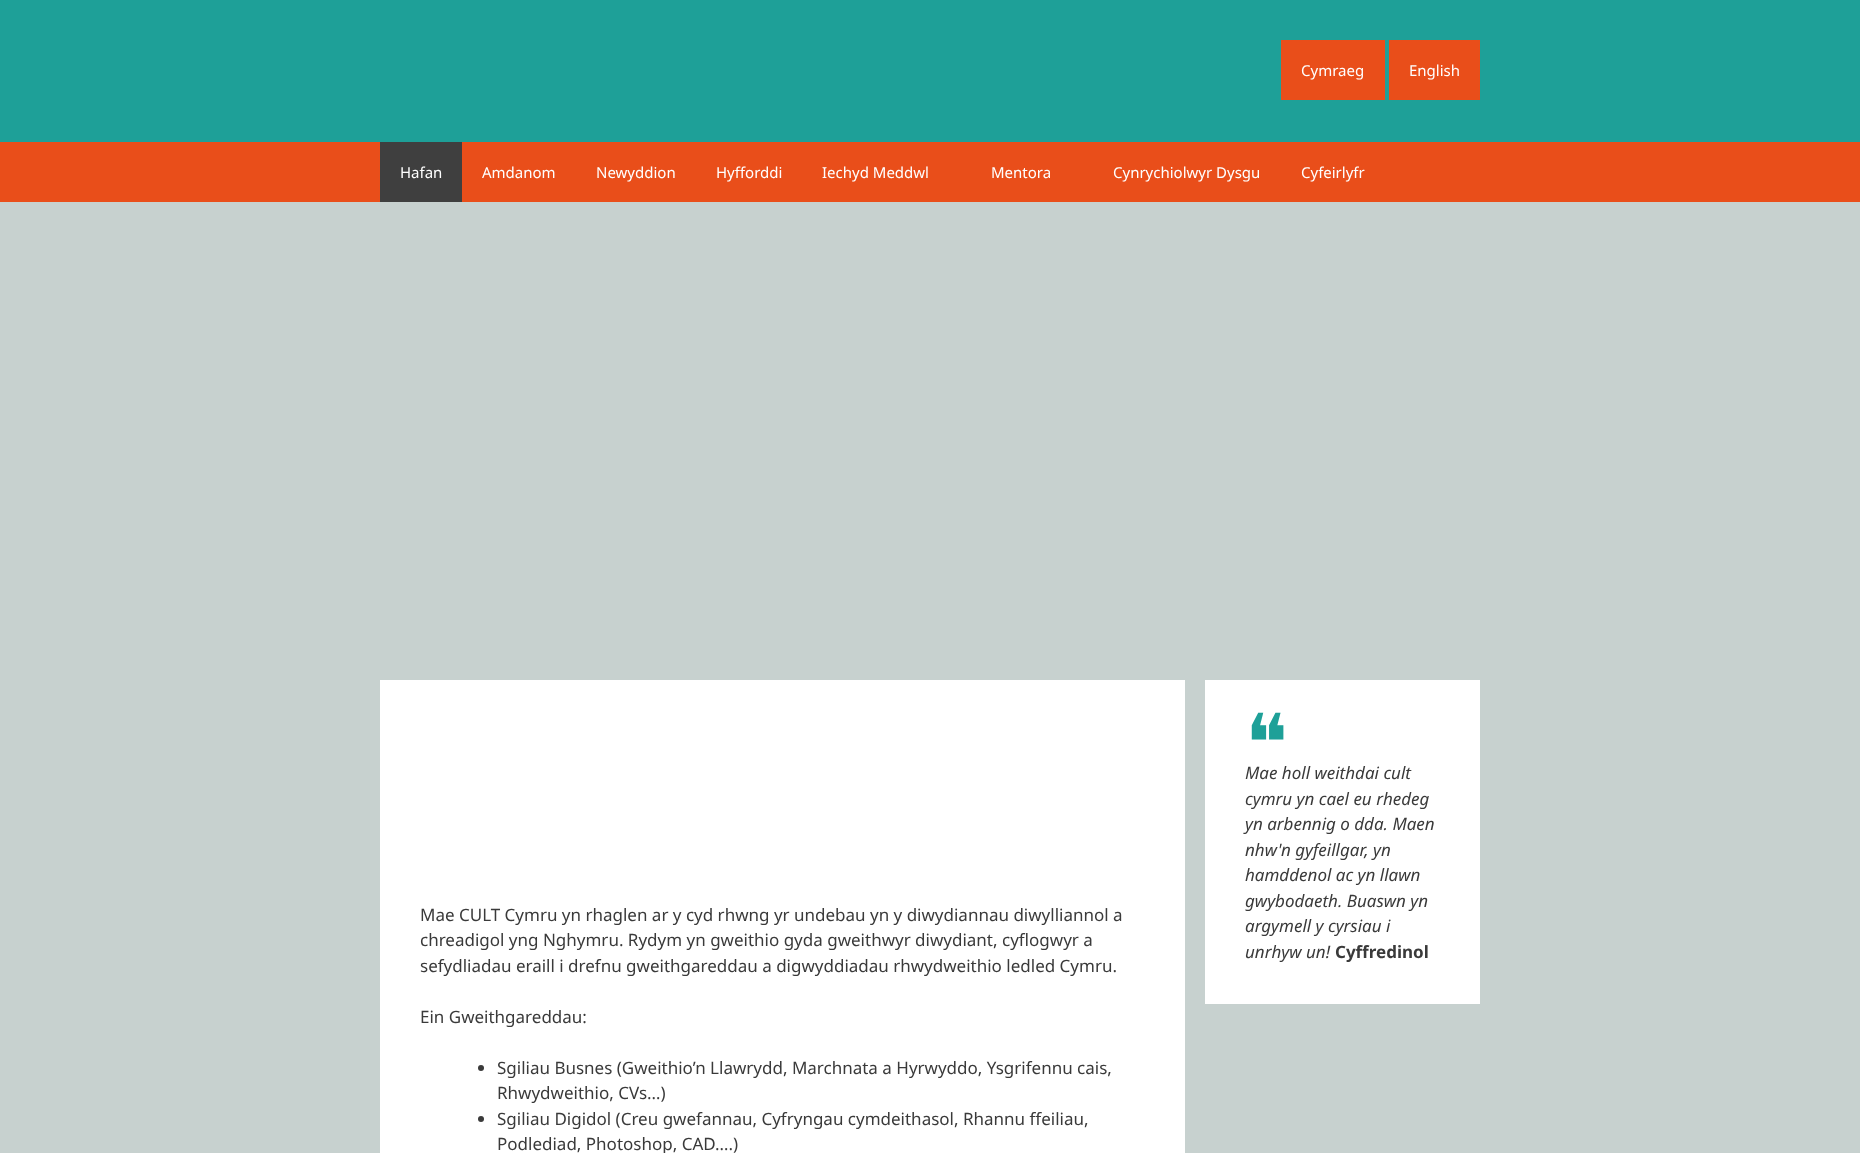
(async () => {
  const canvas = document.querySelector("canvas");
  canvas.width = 1860;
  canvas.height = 1153;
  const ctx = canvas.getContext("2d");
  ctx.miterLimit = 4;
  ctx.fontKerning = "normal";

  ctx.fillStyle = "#c7d1cf";
  ctx.fillRect(0, 0, 1860, 1153);
  for (const [x, y, w, h, color] of [
    [0, 0, 1860, 142, "#1ea098"],
    [1281, 40, 104, 60, "#e94e1a"],
    [1389, 40, 91, 60, "#e94e1a"],
    [0, 142, 1860, 60, "#e94e1a"],
    [380, 142, 82, 60, "#3f3f3f"],
    [1205, 680, 275, 324, "#ffffff"],
    [380, 680, 805, 473, "#ffffff"],
  ]) {
    ctx.fillStyle = color;
    ctx.fillRect(x, y, w, h);
  }
  ctx.fillStyle = "#3a3a3a";
  ctx.beginPath();
  ctx.arc(481, 1068, 3, 0, Math.PI * 2);
  ctx.fill();
  ctx.beginPath();
  ctx.arc(481, 1119, 3, 0, Math.PI * 2);
  ctx.fill();
  ctx.font = "15px Noto Sans";
  ctx.fillStyle = "#ffffff";
  for (const [text, x, y] of [
    ["Cymraeg", 1301, 76],
    ["English", 1409, 76],
    ["Hafan", 400, 178],
    ["Amdanom", 482, 178],
    ["Newyddion", 596, 178],
    ["Hyfforddi", 716, 178],
    ["Iechyd Meddwl", 822, 178],
    ["Mentora", 991, 178],
    ["Cynrychiolwyr Dysgu", 1113, 178],
    ["Cyfeirlyfr", 1301, 178],
  ]) {
    ctx.fillText(text, x, y);
  }
  ctx.font = "80px DejaVu Sans";
  ctx.fillStyle = "#1ea098";
  ctx.fillText("❝", 1245, 771);
  ctx.font = "italic 17px Noto Sans";
  ctx.fillStyle = "#3a3a3a";
  for (const [text, x, y] of [
    ["Mae holl weithdai cult", 1245, 779],
    ["cymru yn cael eu rhedeg", 1245, 805],
    ["yn arbennig o dda. Maen", 1245, 830],
    ["nhw'n gyfeillgar, yn", 1245, 856],
    ["hamddenol ac yn llawn", 1245, 881],
    ["gwybodaeth. Buaswn yn", 1245, 907],
    ["argymell y cyrsiau i", 1245, 932],
    ["unrhyw un!", 1245, 958],
  ]) {
    ctx.fillText(text, x, y);
  }
  ctx.font = "bold 17px Noto Sans";
  ctx.fillText("Cyffredinol", 1335, 958);
  ctx.font = "17px Noto Sans";
  for (const [text, x, y] of [
    ["Mae CULT Cymru yn rhaglen ar y cyd rhwng yr undebau yn y diwydiannau diwylliannol a", 420, 921],
    ["chreadigol yng Nghymru. Rydym yn gweithio gyda gweithwyr diwydiant, cyflogwyr a", 420, 946],
    ["sefydliadau eraill i drefnu gweithgareddau a digwyddiadau rhwydweithio ledled Cymru.", 420, 972],
    ["Ein Gweithgareddau:", 420, 1023],
    ["Sgiliau Busnes (Gweithio’n Llawrydd, Marchnata a Hyrwyddo, Ysgrifennu cais,", 497, 1074],
    ["Rhwydweithio, CVs…)", 497, 1099],
    ["Sgiliau Digidol (Creu gwefannau, Cyfryngau cymdeithasol, Rhannu ffeiliau,", 497, 1125],
    ["Podlediad, Photoshop, CAD….)", 497, 1150],
  ]) {
    ctx.fillText(text, x, y);
  }
})();
